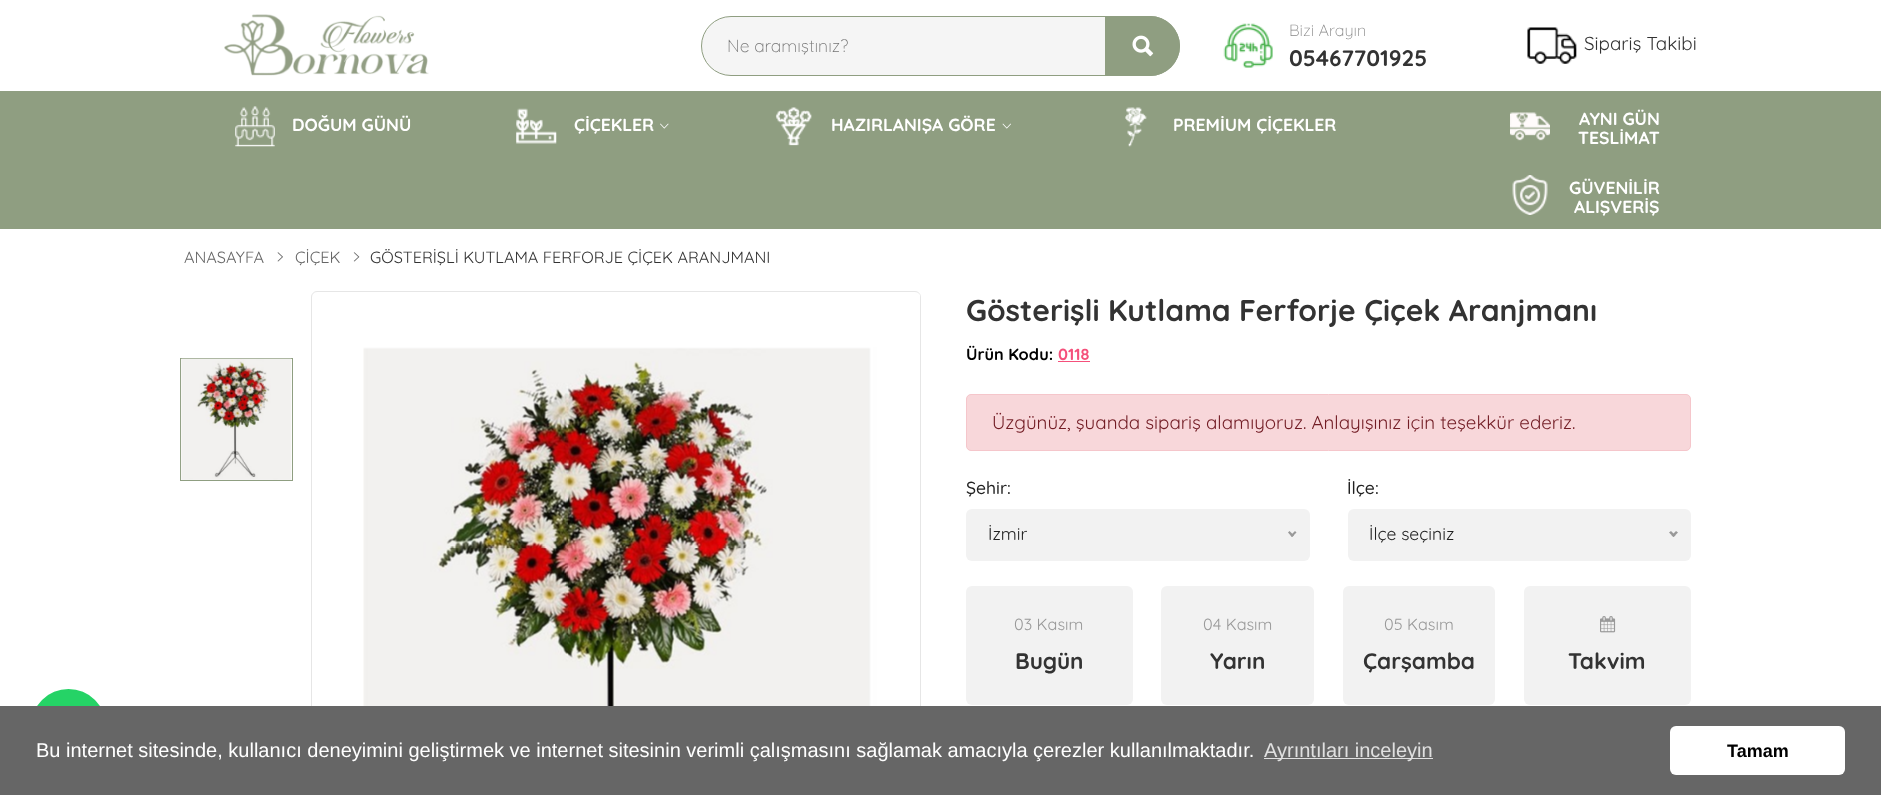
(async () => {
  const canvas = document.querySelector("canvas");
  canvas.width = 1881;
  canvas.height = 795;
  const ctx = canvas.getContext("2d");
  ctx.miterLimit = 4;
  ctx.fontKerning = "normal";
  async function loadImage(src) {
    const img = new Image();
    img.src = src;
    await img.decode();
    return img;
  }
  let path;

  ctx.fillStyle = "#ffffff";
  ctx.fillRect(0, 0, 1881, 795);
  ctx.drawImage(await loadImage("img/1.png"), 224, 14, 205, 62);
  ctx.fillStyle = "#f5f5f5";
  ctx.beginPath();
  ctx.roundRect(701.5, 16.5, 478, 59, 29.5);
  ctx.fill();
  ctx.strokeStyle = "#8f9e81";
  ctx.stroke();
  ctx.fillStyle = "#8f9e81";
  ctx.beginPath();
  ctx.roundRect(1105, 16, 75, 60, [0, 30, 30, 0]);
  ctx.fill();
  ctx.drawImage(await loadImage("img/2.png"), 1132, 35, 22, 22);
  ctx.drawImage(await loadImage("img/3.png"), 1223, 23, 50, 45);
  ctx.drawImage(await loadImage("img/4.png"), 1527, 27, 50, 37);
  ctx.fillRect(0, 91, 1881, 138);
  ctx.drawImage(await loadImage("img/5.png"), 235, 106, 40, 41);
  ctx.drawImage(await loadImage("img/6.png"), 516, 108, 41, 36);
  ctx.drawImage(await loadImage("img/7.png"), 660, 123, 9, 6);
  ctx.drawImage(await loadImage("img/8.png"), 775, 107, 37, 39);
  ctx.drawImage(await loadImage("img/9.png"), 1002, 123, 9, 6);
  ctx.drawImage(await loadImage("img/10.png"), 1125, 107, 22, 40);
  ctx.drawImage(await loadImage("img/11.png"), 1510, 112, 40, 29);
  ctx.drawImage(await loadImage("img/12.png"), 1512, 175, 36, 40);
  ctx.drawImage(await loadImage("img/13.png"), 277, 252, 6, 10);
  ctx.drawImage(await loadImage("img/14.png"), 353, 252, 7, 10);
  ctx.strokeRect(180.5, 358.5, 112, 122);
  ctx.drawImage(await loadImage("img/15.png"), 180, 358, 112, 122);
  ctx.beginPath();
  ctx.roundRect(311.5, 291.5, 609, 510, 5.5);
  ctx.strokeStyle = "#e6e6e6";
  ctx.stroke();
  ctx.save();
  ctx.beginPath();
  ctx.rect(313, 293, 607, 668);
  ctx.clip();
  ctx.fillStyle = "#ffffff";
  ctx.beginPath();
  ctx.roundRect(313, 293, 608, 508, 6);
  ctx.fill();
  ctx.restore();
  ctx.drawImage(await loadImage("img/16.png"), 363, 293, 557, 413);
  ctx.fillStyle = "#f5507b";
  ctx.fillRect(1058, 361, 32, 1);
  ctx.fillStyle = "#f8d7da";
  ctx.beginPath();
  ctx.roundRect(966.5, 394.5, 724, 56, 4.5);
  ctx.fill();
  ctx.strokeStyle = "#f5c6cb";
  ctx.stroke();
  ctx.fillStyle = "#f2f2f2";
  ctx.beginPath();
  ctx.roundRect(966, 509, 344, 52, 6);
  ctx.fill();
  ctx.fillStyle = "#999999";
  path = new Path2D("M1295 531L1296.5 532.5L1292 537L1290.5 535.5Z");
  ctx.fill(path);
  path = new Path2D("M1289.5 531L1294 535.5L1292 537L1288 532.5Z");
  ctx.fill(path);
  ctx.fillStyle = "#f2f2f2";
  ctx.beginPath();
  ctx.roundRect(1348, 509, 343, 52, 6);
  ctx.fill();
  ctx.fillStyle = "#999999";
  path = new Path2D("M1676 531L1678 532.5L1673.5 537L1671.5 535.5Z");
  ctx.fill(path);
  path = new Path2D("M1671 531L1675.5 535.5L1673.5 537L1669 532.5Z");
  ctx.fill(path);
  ctx.fillStyle = "#f2f2f2";
  ctx.beginPath();
  ctx.roundRect(966, 586, 167, 119, 6);
  ctx.fill();
  ctx.beginPath();
  ctx.roundRect(1161, 586, 153, 119, 6);
  ctx.fill();
  ctx.beginPath();
  ctx.roundRect(1343, 586, 152, 119, 6);
  ctx.fill();
  ctx.beginPath();
  ctx.roundRect(1524, 586, 167, 119, 6);
  ctx.fill();
  ctx.drawImage(await loadImage("img/17.png"), 1600, 616, 16, 17);
  ctx.fillStyle = "#25d366";
  ctx.beginPath();
  ctx.arc(68.5, 726.5, 37.5, 0, Math.PI * 2);
  ctx.fill();
  ctx.fillStyle = "#666666";
  ctx.fillRect(0, 706, 1881, 89);
  ctx.fillStyle = "#e0e0e0";
  ctx.fillRect(1264, 758, 169, 1);
  ctx.fillStyle = "#ffffff";
  ctx.beginPath();
  ctx.roundRect(1670, 726, 175, 49, 6);
  ctx.fill();
  ctx.font = "300 17.5px Quicksand";
  ctx.fillStyle = "#757575";
  ctx.fillText("Ne aramıştınız?", 727, 52);
  ctx.font = "300 16.25px Quicksand";
  ctx.fillStyle = "#888888";
  ctx.fillText("Bizi Arayın", 1289, 36);
  ctx.font = "bold 22.5px Quicksand";
  ctx.fillStyle = "#333333";
  ctx.fillText("05467701925", 1289, 66);
  ctx.font = "18.75px Quicksand";
  ctx.fillText("Sipariş Takibi", 1584, 50);
  ctx.font = "bold 17.5px Quicksand";
  ctx.fillStyle = "#ffffff";
  for (const [text, x, y] of [
    ["DOĞUM GÜNÜ", 292, 131],
    ["ÇİÇEKLER", 574, 131],
    ["HAZIRLANIŞA GÖRE", 831, 131],
    ["PREMİUM ÇİÇEKLER", 1173, 131],
    ["AYNI GÜN", 1579, 125],
    ["TESLİMAT", 1578, 144],
    ["GÜVENİLİR", 1569, 194],
    ["ALIŞVERİŞ", 1574, 213],
  ]) {
    ctx.fillText(text, x, y);
  }
  ctx.font = "16.25px Quicksand";
  ctx.fillStyle = "#666666";
  ctx.fillText("ANASAYFA", 184, 263);
  ctx.fillText("ÇİÇEK", 295, 263);
  ctx.fillStyle = "#333333";
  ctx.fillText("GÖSTERİŞLİ KUTLAMA FERFORJE ÇİÇEK ARANJMANI", 370, 263);
  ctx.font = "bold 30px Quicksand";
  ctx.fillText("Gösterişli Kutlama Ferforje Çiçek Aranjmanı", 966, 321);
  ctx.font = "bold 16.25px Quicksand";
  ctx.fillStyle = "#000000";
  ctx.fillText("Ürün Kodu:", 966, 360);
  ctx.fillStyle = "#f5507b";
  ctx.fillText("0118", 1058, 360);
  ctx.font = "18.75px Quicksand";
  ctx.fillStyle = "#721c24";
  ctx.fillText("Üzgünüz, şuanda sipariş alamıyoruz. Anlayışınız için teşekkür ederiz.", 992, 429);
  ctx.font = "500 17.5px Quicksand";
  ctx.fillStyle = "#222222";
  ctx.fillText("Şehir:", 966, 494);
  ctx.font = "17.5px Quicksand";
  ctx.fillText("İzmir", 988, 540);
  ctx.font = "500 17.5px Quicksand";
  ctx.fillText("İlçe:", 1347, 494);
  ctx.font = "17.5px Quicksand";
  ctx.fillText("İlçe seçiniz", 1369, 540);
  ctx.font = "16.25px Quicksand";
  ctx.fillStyle = "#999999";
  ctx.fillText("03 Kasım", 1014, 630);
  ctx.font = "bold 22.5px Quicksand";
  ctx.fillStyle = "#333333";
  ctx.fillText("Bugün", 1015, 669);
  ctx.font = "16.25px Quicksand";
  ctx.fillStyle = "#999999";
  ctx.fillText("04 Kasım", 1203, 630);
  ctx.font = "bold 22.5px Quicksand";
  ctx.fillStyle = "#333333";
  ctx.fillText("Yarın", 1210, 669);
  ctx.font = "16.25px Quicksand";
  ctx.fillStyle = "#999999";
  ctx.fillText("05 Kasım", 1384, 630);
  ctx.font = "bold 22.5px Quicksand";
  ctx.fillStyle = "#333333";
  ctx.fillText("Çarşamba", 1363, 669);
  ctx.fillText("Takvim", 1568, 669);
  ctx.font = "20px Liberation Sans";
  ctx.fillStyle = "#ffffff";
  ctx.fillText("Bu internet sitesinde, kullanıcı deneyimini geliştirmek ve internet sitesinin verimli çalışmasını sağlamak amacıyla çerezler kullanılmaktadır.", 36, 757);
  ctx.fillStyle = "#e0e0e0";
  ctx.fillText("Ayrıntıları inceleyin", 1264, 757);
  ctx.font = "bold 18px Liberation Sans";
  ctx.fillStyle = "#000000";
  ctx.fillText("Tamam", 1727, 757);
})();
